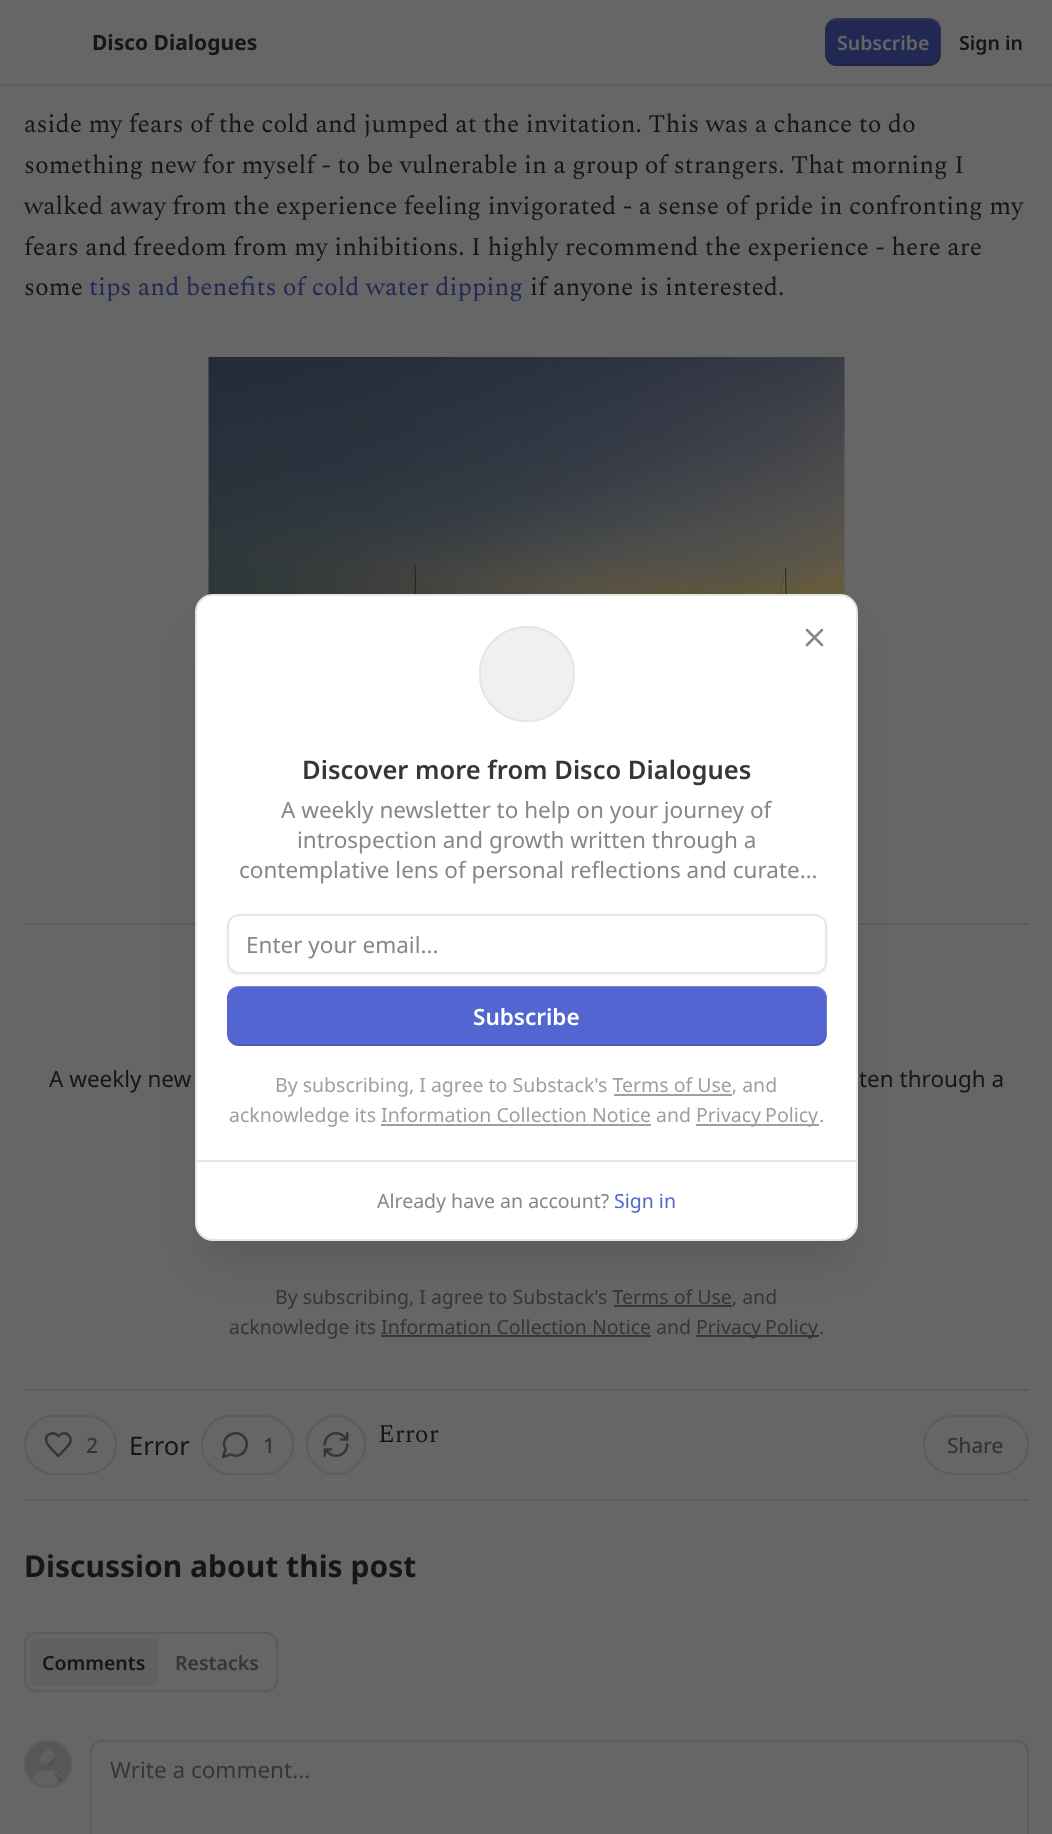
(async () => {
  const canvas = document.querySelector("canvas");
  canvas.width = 1052;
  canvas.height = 1834;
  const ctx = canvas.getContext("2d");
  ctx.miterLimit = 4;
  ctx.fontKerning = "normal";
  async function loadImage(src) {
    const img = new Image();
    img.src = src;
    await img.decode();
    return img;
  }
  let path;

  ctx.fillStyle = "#666666";
  ctx.fillRect(0, 0, 1052, 1834);
  ctx.fillStyle = "#5c5c5c";
  ctx.fillRect(0, 84, 1052, 2);
  ctx.fillStyle = "#212853";
  ctx.beginPath();
  ctx.roundRect(825, 18, 116, 48, 12);
  ctx.fill();
  ctx.fillStyle = "rgba(0, 0, 0, 0.1)";
  path = new Path2D("M825 52V54C825 61 830 66 837 66H929C936 66 941 61 941 54V30C941 28 940 25 939 23L940 28V52C940 59 935 64 928 64H837C830 64 825 59 825 52Z");
  ctx.fill(path);
  ctx.fillStyle = "rgba(102, 102, 102, 0.2)";
  path = new Path2D("M837 20H928C935 20 940 25 940 32V56L939 61C940 59 941 56 941 54V30C941 23 936 18 929 18H837C830 18 825 23 825 30V32C825 25 830 20 837 20Z");
  ctx.fill(path);
  ctx.drawImage(await loadImage("img/1.png"), 208, 357, 637, 238);
  for (const [x, y, w, h, color] of [
    [24, 923, 1005, 2, "#5c5c5c"],
    [614, 1305, 118, 2, "#363636"],
    [696, 1335, 123, 2, "#363636"],
    [381, 1335, 270, 2, "#363636"],
    [24, 1389, 1005, 2, "#5c5c5c"],
    [24, 1499, 1005, 2, "#5c5c5c"],
  ]) {
    ctx.fillStyle = color;
    ctx.fillRect(x, y, w, h);
  }
  ctx.beginPath();
  ctx.arc(336, 1445, 29, 0, Math.PI * 2);
  ctx.strokeStyle = "#5c5c5c";
  ctx.lineWidth = 2;
  ctx.stroke();
  ctx.drawImage(await loadImage("img/2.png"), 323, 1432, 26, 25);
  ctx.beginPath();
  ctx.roundRect(25, 1416, 91, 58, 29);
  ctx.stroke();
  path = new Path2D("M67 1447C76.5 1438 65.5 1428.5 58.5 1436C53 1430.5 44 1434.5 46.5 1442C47.5 1446 55.5 1453 58.5 1456Z");
  ctx.strokeStyle = "#363636";
  ctx.lineWidth = 2.5;
  ctx.lineCap = "round";
  ctx.lineJoin = "round";
  ctx.stroke(path);
  ctx.beginPath();
  ctx.roundRect(202, 1416, 91, 58, 29);
  ctx.strokeStyle = "#5c5c5c";
  ctx.lineWidth = 2;
  ctx.lineJoin = "miter";
  ctx.stroke();
  path = new Path2D("M230.5 1454.5C236 1457.5 243 1455 245.5 1449.5C247 1446.5 247 1443 246 1440C239.5 1426 218.5 1436 225.5 1449.5L223 1457Z");
  ctx.strokeStyle = "#363636";
  ctx.lineWidth = 2.5;
  ctx.lineJoin = "round";
  ctx.stroke(path);
  ctx.beginPath();
  ctx.roundRect(924, 1416, 104, 58, 29);
  ctx.strokeStyle = "#5c5c5c";
  ctx.lineWidth = 2;
  ctx.lineJoin = "miter";
  ctx.stroke();
  ctx.fillStyle = "rgba(0, 0, 0, 0.1)";
  ctx.filter = "blur(19px)";
  ctx.beginPath();
  ctx.roundRect(203, 632, 648, 631, 11);
  ctx.fill();
  ctx.filter = "none";
  ctx.fillStyle = "#ffffff";
  ctx.beginPath();
  ctx.roundRect(196, 595, 661, 645, 17);
  ctx.fill();
  ctx.strokeStyle = "#e6e6e6";
  ctx.stroke();
  ctx.beginPath();
  ctx.arc(527, 674, 47, 0, Math.PI * 2);
  ctx.stroke();
  ctx.fillStyle = "#f0f0f0";
  ctx.beginPath();
  ctx.arc(527, 674, 47, 0, Math.PI * 2);
  ctx.fill();
  ctx.stroke();
  path = new Path2D("M822 630L807 645M807 630L822 645");
  ctx.strokeStyle = "#868787";
  ctx.lineWidth = 2.5;
  ctx.lineJoin = "round";
  ctx.stroke(path);
  ctx.fillStyle = "rgba(0, 0, 0, 0.05)";
  ctx.filter = "blur(1.5px)";
  ctx.beginPath();
  ctx.roundRect(227, 915, 600, 60, 12);
  ctx.fill();
  ctx.filter = "none";
  ctx.fillStyle = "#ffffff";
  ctx.beginPath();
  ctx.roundRect(228, 915, 598, 58, 11);
  ctx.fill();
  ctx.strokeStyle = "#e6e6e6";
  ctx.lineWidth = 2;
  ctx.lineJoin = "miter";
  ctx.stroke();
  ctx.fillStyle = "#5365d0";
  ctx.beginPath();
  ctx.roundRect(227, 986, 600, 60, 12);
  ctx.fill();
  ctx.fillStyle = "rgba(0, 0, 0, 0.1)";
  path = new Path2D("M228 1038C229 1043 234 1046 239 1046H815C822 1046 827 1041 827 1034V998C827 996 826 994 825 992L826 996V1032C826 1039 821 1044 814 1044H238C234 1044 230 1042 228 1038Z");
  ctx.fill(path);
  ctx.fillStyle = "rgba(255, 255, 255, 0.2)";
  path = new Path2D("M238 987H814C821 987 826 992 826 999V1035C826 1038 825 1040 824 1042C826 1040 827 1037 827 1034V998C827 991 822 986 815 986H239C235 986 232 988 230 990C232 988 235 987 238 987Z");
  ctx.fill(path);
  for (const [x, y, w, h, color] of [
    [614, 1094, 118, 2, "#9e9f9f"],
    [696, 1124, 123, 2, "#9e9f9f"],
    [381, 1124, 270, 2, "#9e9f9f"],
    [197, 1160, 660, 2, "#e6e6e6"],
  ]) {
    ctx.fillStyle = color;
    ctx.fillRect(x, y, w, h);
  }
  ctx.beginPath();
  ctx.roundRect(25, 1633, 252, 58, 11);
  ctx.strokeStyle = "#5c5c5c";
  ctx.stroke();
  ctx.fillStyle = "#606060";
  ctx.beginPath();
  ctx.roundRect(30, 1638, 128, 48, 6);
  ctx.fill();
  ctx.beginPath();
  ctx.arc(48, 1764, 23, 0, Math.PI * 2);
  ctx.stroke();
  ctx.drawImage(await loadImage("img/3.png"), 24, 1740, 48, 48);
  ctx.beginPath();
  ctx.arc(48, 1764, 23, 0, Math.PI * 2);
  ctx.stroke();
  ctx.beginPath();
  ctx.roundRect(91, 1741, 937, 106, 11);
  ctx.stroke();
  ctx.font = "bold 21px Noto Sans";
  ctx.fillStyle = "#161616";
  ctx.fillText("Disco Dialogues", 92, 50);
  ctx.font = "600 19.5px Noto Sans";
  ctx.fillStyle = "#666666";
  ctx.fillText("Subscribe", 837, 50);
  ctx.fillStyle = "#161616";
  ctx.fillText("Sign in", 959, 50);
  ctx.font = "25.5px Spectral";
  for (const [text, x, y] of [
    ["aside my fears of the cold and jumped at the invitation. This was a chance to do", 24, 132],
    ["something new for myself - to be vulnerable in a group of strangers. That morning I", 24, 173],
    ["walked away from the experience feeling invigorated - a sense of pride in confronting my", 24, 214],
    ["fears and freedom from my inhibitions. I highly recommend the experience - here are", 24, 255],
    ["some", 24, 295],
  ]) {
    ctx.fillText(text, x, y);
  }
  ctx.fillStyle = "#212853";
  ctx.fillText("tips and benefits of cold water dipping", 89, 295);
  ctx.fillStyle = "#161616";
  ctx.fillText("if anyone is interested.", 530, 295);
  ctx.font = "22.5px Noto Sans";
  ctx.fillText("A weekly new", 49, 1087);
  ctx.fillText("ten through a", 859, 1087);
  ctx.font = "19.5px Noto Sans";
  ctx.fillStyle = "#363636";
  ctx.fillText("By subscribing, I agree to Substack's Terms of Use, and", 275, 1304);
  ctx.fillText("acknowledge its Information Collection Notice and", 229, 1334);
  ctx.wordSpacing = "-1px";
  ctx.fillText("Privacy Policy", 696, 1334);
  ctx.wordSpacing = "0px";
  ctx.fillText(".", 819, 1334);
  ctx.font = "25.5px Spectral";
  ctx.fillStyle = "#161616";
  ctx.fillText("Error", 378, 1442);
  ctx.letterSpacing = "-0.25px";
  ctx.font = "500 21px Noto Sans";
  ctx.fillStyle = "#363636";
  ctx.fillText("2", 86, 1453);
  ctx.letterSpacing = "0px";
  ctx.font = "25.5px Noto Sans";
  ctx.fillStyle = "#161616";
  ctx.fillText("Error", 129, 1455);
  ctx.letterSpacing = "-0.25px";
  ctx.font = "500 21px Noto Sans";
  ctx.fillStyle = "#363636";
  ctx.fillText("1", 263, 1453);
  ctx.fillText("Share", 947, 1453);
  ctx.letterSpacing = "0px";
  ctx.font = "600 25.5px Noto Sans";
  ctx.fillText("Discover more from Disco Dialogues", 302, 779);
  ctx.font = "22.5px Noto Sans";
  ctx.fillStyle = "#868787";
  for (const [text, x, y] of [
    ["A weekly newsletter to help on your journey of", 281, 818],
    ["introspection and growth written through a", 297, 848],
    ["contemplative lens of personal reflections and curate…", 239, 878],
    ["Enter your email...", 246, 953],
  ]) {
    ctx.fillText(text, x, y);
  }
  ctx.font = "600 22.5px Noto Sans";
  ctx.fillStyle = "#ffffff";
  ctx.fillText("Subscribe", 473, 1025);
  ctx.font = "19.5px Noto Sans";
  ctx.fillStyle = "#9e9f9f";
  ctx.fillText("By subscribing, I agree to Substack's Terms of Use, and", 275, 1092);
  ctx.fillText("acknowledge its Information Collection Notice and", 229, 1122);
  ctx.wordSpacing = "-1px";
  ctx.fillText("Privacy Policy", 696, 1122);
  ctx.wordSpacing = "0px";
  ctx.fillText(".", 819, 1122);
  ctx.fillStyle = "#868787";
  ctx.fillText("Already have an account?", 377, 1208);
  ctx.fillStyle = "#5365d0";
  ctx.fillText("Sign in", 614, 1208);
  ctx.font = "bold 30px Noto Sans";
  ctx.fillStyle = "#161616";
  ctx.fillText("Discussion about this post", 24, 1577);
  ctx.font = "600 19.5px Noto Sans";
  ctx.fillText("Comments", 42, 1670);
  ctx.fillStyle = "#363636";
  ctx.fillText("Restacks", 175, 1670);
  ctx.font = "22.5px Noto Sans";
  ctx.fillText("Write a comment...", 110, 1778);
})();
